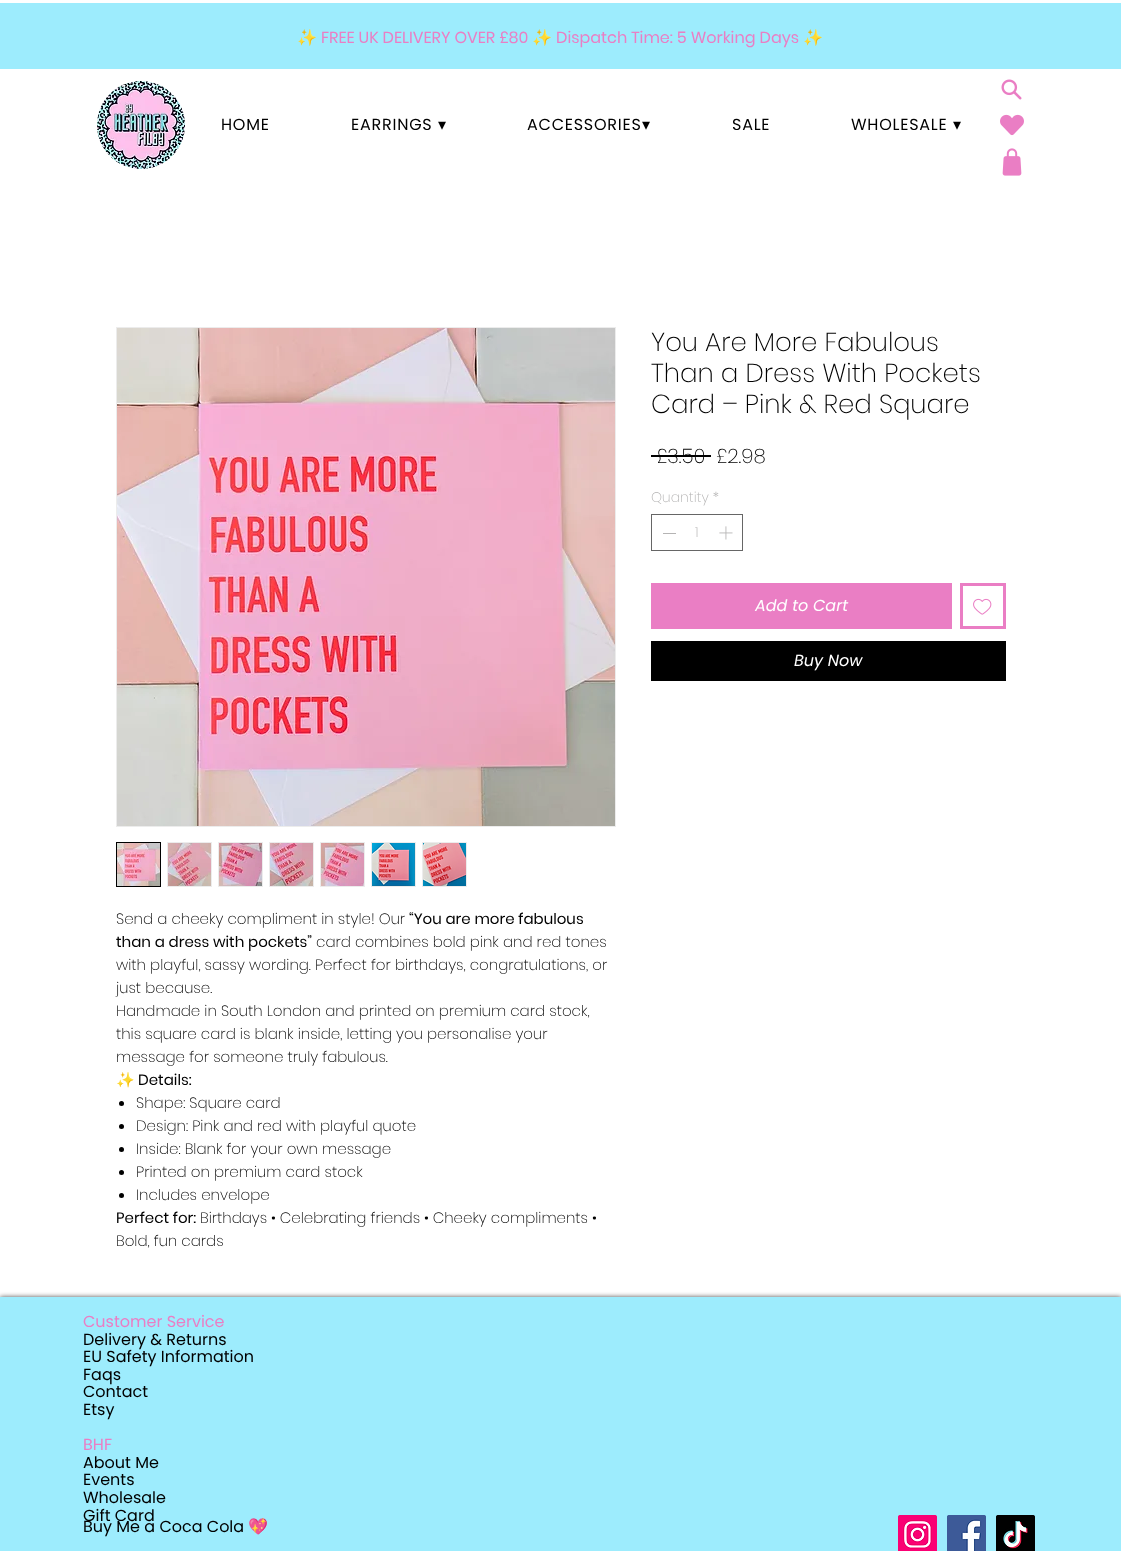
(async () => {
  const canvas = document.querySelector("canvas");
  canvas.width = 1121;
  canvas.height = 1551;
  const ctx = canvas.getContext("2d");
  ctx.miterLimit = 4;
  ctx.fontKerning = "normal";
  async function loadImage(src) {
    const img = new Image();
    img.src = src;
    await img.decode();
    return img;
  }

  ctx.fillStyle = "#ffffff";
  ctx.fillRect(0, 0, 1121, 1551);
  ctx.fillStyle = "#9decfd";
  ctx.fillRect(0, 3, 1121, 66);
  ctx.drawImage(await loadImage("img/1.png"), 97, 81, 88, 88);
  ctx.drawImage(await loadImage("img/2.png"), 1001, 79, 21, 21);
  ctx.drawImage(await loadImage("img/3.png"), 1000, 114, 24, 22);
  ctx.drawImage(await loadImage("img/4.png"), 1002, 148, 20, 28);
  ctx.fillStyle = "#000000";
  ctx.fillRect(651, 455, 60, 2);
  ctx.strokeStyle = "#666666";
  ctx.strokeRect(651.5, 514.5, 91, 36);
  ctx.fillStyle = "#b5b4b4";
  ctx.fillRect(663, 533, 13, 1);
  ctx.drawImage(await loadImage("img/5.png"), 719, 526, 14, 14);
  ctx.fillStyle = "#ea7ec4";
  ctx.fillRect(651, 583, 301, 46);
  ctx.strokeStyle = "#ea7ec4";
  ctx.lineWidth = 3;
  ctx.strokeRect(961.5, 584.5, 43, 43);
  ctx.drawImage(await loadImage("img/6.png"), 973, 598, 19, 17);
  ctx.fillStyle = "#000000";
  ctx.fillRect(651, 641, 355, 40);
  ctx.strokeStyle = "#ececec";
  ctx.lineWidth = 1;
  ctx.strokeRect(116.5, 327.5, 499, 499);
  ctx.drawImage(await loadImage("img/7.png"), 117, 328, 498, 498);
  ctx.strokeStyle = "#000000";
  ctx.strokeRect(116.5, 842.5, 44, 44);
  ctx.drawImage(await loadImage("img/8.png"), 117, 843, 43, 43);
  ctx.fillStyle = "#ececec";
  ctx.fillRect(167, 842, 45, 45);
  ctx.drawImage(await loadImage("img/9.png"), 168, 843, 43, 43);
  ctx.fillRect(218, 842, 45, 45);
  ctx.drawImage(await loadImage("img/10.png"), 219, 843, 43, 43);
  ctx.fillRect(269, 842, 45, 45);
  ctx.drawImage(await loadImage("img/11.png"), 270, 843, 43, 43);
  ctx.fillRect(320, 842, 45, 45);
  ctx.drawImage(await loadImage("img/12.png"), 321, 843, 43, 43);
  ctx.fillRect(371, 842, 45, 45);
  ctx.drawImage(await loadImage("img/13.png"), 372, 843, 43, 43);
  ctx.fillRect(422, 842, 45, 45);
  ctx.drawImage(await loadImage("img/14.png"), 423, 843, 43, 43);
  ctx.fillStyle = "#000000";
  ctx.beginPath();
  ctx.arc(121.5, 1103.5, 2.5, 0, Math.PI * 2);
  ctx.fill();
  ctx.beginPath();
  ctx.arc(121.5, 1126.5, 2.5, 0, Math.PI * 2);
  ctx.fill();
  ctx.beginPath();
  ctx.arc(121.5, 1149.5, 2.5, 0, Math.PI * 2);
  ctx.fill();
  ctx.beginPath();
  ctx.arc(121.5, 1172.5, 2.5, 0, Math.PI * 2);
  ctx.fill();
  ctx.beginPath();
  ctx.arc(121.5, 1195.5, 2.5, 0, Math.PI * 2);
  ctx.fill();
  ctx.fillStyle = "rgba(0, 0, 0, 0.7)";
  ctx.filter = "blur(2.5px)";
  ctx.beginPath();
  ctx.rect(0, 1297, 1121, 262);
  ctx.fill();
  ctx.filter = "none";
  ctx.fillStyle = "#9decfd";
  ctx.fillRect(0, 1297, 1121, 254);
  ctx.drawImage(await loadImage("img/15.png"), 898, 1515, 39, 36);
  ctx.drawImage(await loadImage("img/16.png"), 947, 1515, 39, 36);
  ctx.drawImage(await loadImage("img/17.png"), 996, 1515, 39, 36);
  ctx.font = "bold 16px Noto Color Emoji";
  ctx.fillStyle = "#ea7ec4";
  ctx.fillText("✨", 297, 43);
  ctx.font = "16px Poppins";
  ctx.fillText("FREE UK DELIVERY OVER £80", 321, 43);
  ctx.font = "bold 16px Noto Color Emoji";
  ctx.fillText("✨", 532, 43);
  ctx.font = "16px Poppins";
  ctx.fillText("Dispatch Time: 5 Working Days", 556, 43);
  ctx.font = "bold 16px Noto Color Emoji";
  ctx.fillText("✨", 803, 43);
  ctx.letterSpacing = "0.75px";
  ctx.font = "16px 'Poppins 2'";
  ctx.fillStyle = "#000000";
  ctx.fillText("HOME", 221, 130);
  ctx.fillText("EARRINGS", 351, 130);
  ctx.font = "16px DejaVu Sans";
  ctx.fillText("▾", 438, 130);
  ctx.font = "16px 'Poppins 2'";
  ctx.fillText("ACCESSORIES", 527, 130);
  ctx.font = "16px DejaVu Sans";
  ctx.fillText("▾", 642, 130);
  ctx.font = "16px 'Poppins 2'";
  ctx.fillText("SALE", 732, 130);
  ctx.fillText("WHOLESALE", 851, 130);
  ctx.font = "16px DejaVu Sans";
  ctx.fillText("▾", 953, 130);
  ctx.letterSpacing = "0px";
  ctx.font = "200 26px Poppins";
  for (const [text, x, y] of [
    ["You Are More Fabulous", 651, 351],
    ["Than a Dress With Pockets", 651, 382],
    ["Card – Pink & Red Square", 651, 413],
  ]) {
    ctx.fillText(text, x, y);
  }
  ctx.font = "200 20px Poppins";
  ctx.fillText("£3.50", 656, 463);
  ctx.fillText("£2.98", 716, 463);
  ctx.font = "200 14px Poppins";
  ctx.fillStyle = "#b5b4b4";
  ctx.fillText("Quantity *", 651, 502);
  ctx.fillText("1", 695, 537);
  ctx.font = "italic 16px Poppins";
  ctx.fillStyle = "#ffffff";
  ctx.fillText("Add to Cart", 755, 611);
  ctx.fillText("Buy Now", 794, 666);
  ctx.font = "200 15px Poppins";
  ctx.fillStyle = "#000000";
  ctx.fillText("Send a cheeky compliment in style! Our", 116, 924);
  ctx.font = "15px Poppins";
  ctx.fillText("“You are more fabulous", 409, 924);
  ctx.fillText("than a dress with pockets”", 116, 947);
  ctx.font = "200 15px Poppins";
  for (const [text, x, y] of [
    ["card combines bold pink and red tones", 316, 947],
    ["with playful, sassy wording. Perfect for birthdays, congratulations, or", 116, 970],
    ["just because.", 116, 993],
    ["Handmade in South London and printed on premium card stock,", 116, 1016],
    ["this square card is blank inside, letting you personalise your", 116, 1039],
    ["message for someone truly fabulous.", 116, 1062],
  ]) {
    ctx.fillText(text, x, y);
  }
  ctx.save();
  ctx.beginPath();
  ctx.rect(116, 907, 500, 345);
  ctx.clip();
  ctx.font = "15px Noto Color Emoji";
  ctx.fillText("✨", 116, 1085);
  ctx.restore();
  ctx.font = "15px Poppins";
  ctx.fillText("Details:", 138, 1085);
  ctx.font = "200 15px Poppins";
  for (const [text, x, y] of [
    ["Shape: Square card", 136, 1108],
    ["Design: Pink and red with playful quote", 136, 1131],
    ["Inside: Blank for your own message", 136, 1154],
    ["Printed on premium card stock", 136, 1177],
    ["Includes envelope", 136, 1200],
  ]) {
    ctx.fillText(text, x, y);
  }
  ctx.font = "15px Poppins";
  ctx.fillText("Perfect for:", 116, 1223);
  ctx.font = "200 15px Poppins";
  ctx.fillText("Birthdays • Celebrating friends • Cheeky compliments •", 200, 1223);
  ctx.fillText("Bold, fun cards", 116, 1246);
  ctx.font = "16px 'Poppins 2'";
  ctx.fillStyle = "#ea7ec4";
  ctx.fillText("Customer Service", 83, 1327);
  ctx.fillStyle = "#000000";
  for (const [text, x, y] of [
    ["Delivery & Returns", 83, 1345],
    ["EU Safety Information", 83, 1362],
    ["Faqs", 83, 1380],
    ["Contact", 83, 1397],
    ["Etsy", 83, 1415],
  ]) {
    ctx.fillText(text, x, y);
  }
  ctx.fillStyle = "#ea7ec4";
  ctx.fillText("BHF", 83, 1450);
  ctx.fillStyle = "#000000";
  for (const [text, x, y] of [
    ["About Me", 83, 1468],
    ["Events", 83, 1485],
    ["Wholesale", 83, 1503],
    ["Gift Card", 83, 1521],
    ["Buy Me a Coca Cola", 83, 1532],
  ]) {
    ctx.fillText(text, x, y);
  }
  ctx.font = "16px Noto Color Emoji";
  ctx.fillText("💖", 248, 1532);
})();
